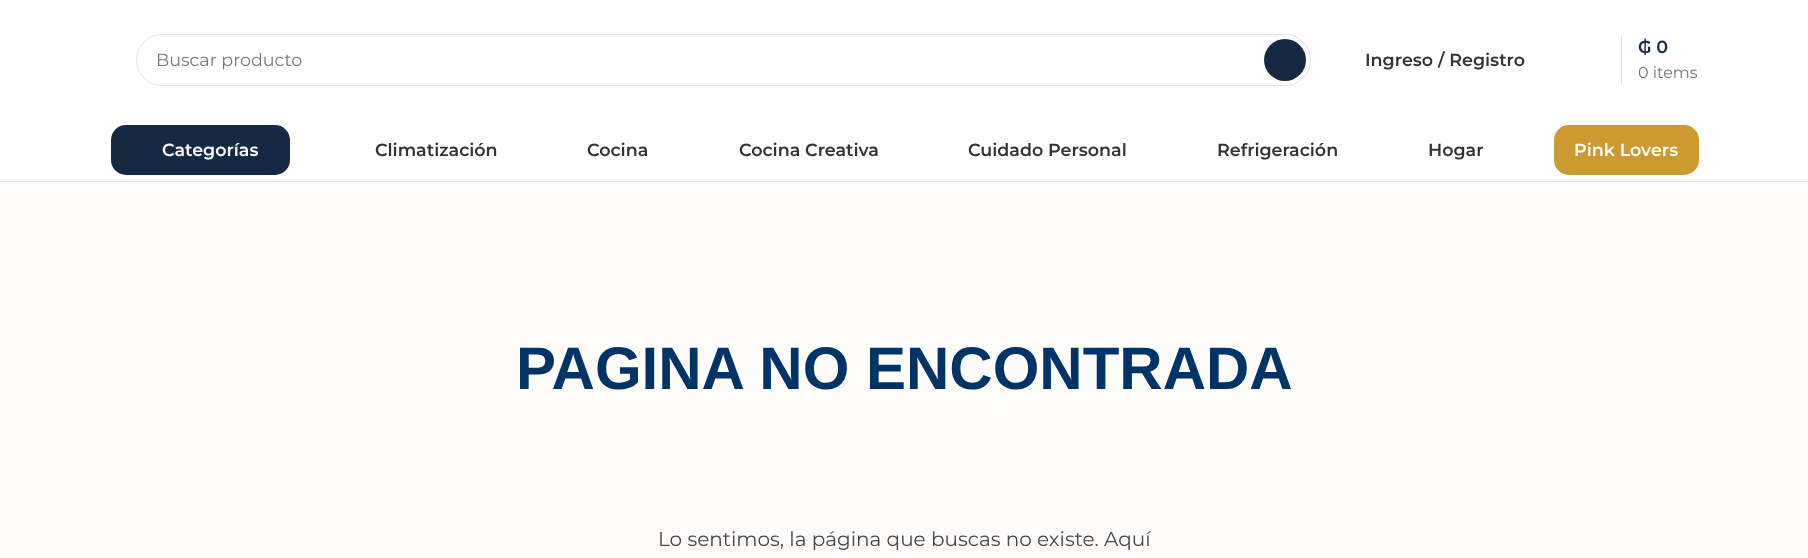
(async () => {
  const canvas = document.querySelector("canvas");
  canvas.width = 1808;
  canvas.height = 558;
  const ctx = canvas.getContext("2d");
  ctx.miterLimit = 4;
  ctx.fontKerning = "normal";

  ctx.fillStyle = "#ffffff";
  ctx.fillRect(0, 0, 1808, 558);
  ctx.beginPath();
  ctx.roundRect(136.5, 34.5, 1174, 51, 25.5);
  ctx.strokeStyle = "#e6e6e6";
  ctx.stroke();
  ctx.fillStyle = "#162944";
  ctx.beginPath();
  ctx.arc(1285, 60, 21, 0, Math.PI * 2);
  ctx.fill();
  ctx.fillStyle = "#e6e6e6";
  ctx.fillRect(1621, 35, 1, 50);
  ctx.fillRect(0, 181, 1808, 1);
  ctx.fillStyle = "#162944";
  ctx.beginPath();
  ctx.roundRect(111, 125, 179, 50, 15);
  ctx.fill();
  ctx.fillStyle = "#cd9a31";
  ctx.beginPath();
  ctx.roundRect(1554, 125, 145, 50, 15);
  ctx.fill();
  ctx.fillStyle = "#fffcfc";
  ctx.fillRect(0, 183, 1808, 375);
  ctx.font = "17.5px Montserrat";
  ctx.fillStyle = "#777777";
  ctx.fillText("Buscar producto", 156, 66);
  ctx.font = "600 17.5px Montserrat";
  ctx.fillStyle = "#333333";
  ctx.fillText("Ingreso / Registro", 1365, 66);
  ctx.fillStyle = "#162944";
  ctx.fillText("₲ 0", 1638, 53);
  ctx.font = "16px Montserrat";
  ctx.fillStyle = "#777777";
  ctx.fillText("0 items", 1638, 78);
  ctx.font = "600 17.5px Montserrat";
  ctx.fillStyle = "#ffffff";
  ctx.fillText("Categorías", 162, 156);
  ctx.fillStyle = "#333333";
  for (const [text, x, y] of [
    ["Climatización", 375, 156],
    ["Cocina", 587, 156],
    ["Cocina Creativa", 739, 156],
    ["Cuidado Personal", 968, 156],
    ["Refrigeración", 1217, 156],
    ["Hogar", 1428, 156],
  ]) {
    ctx.fillText(text, x, y);
  }
  ctx.fillStyle = "#ffffff";
  ctx.fillText("Pink Lovers", 1574, 156);
  ctx.font = "bold 60px Liberation Sans";
  ctx.fillStyle = "#003366";
  ctx.fillText("PAGINA NO ENCONTRADA", 516, 389);
  ctx.font = "20px Montserrat";
  ctx.fillStyle = "#474747";
  ctx.fillText("Lo sentimos, la página que buscas no existe. Aquí", 658, 546);
})();
